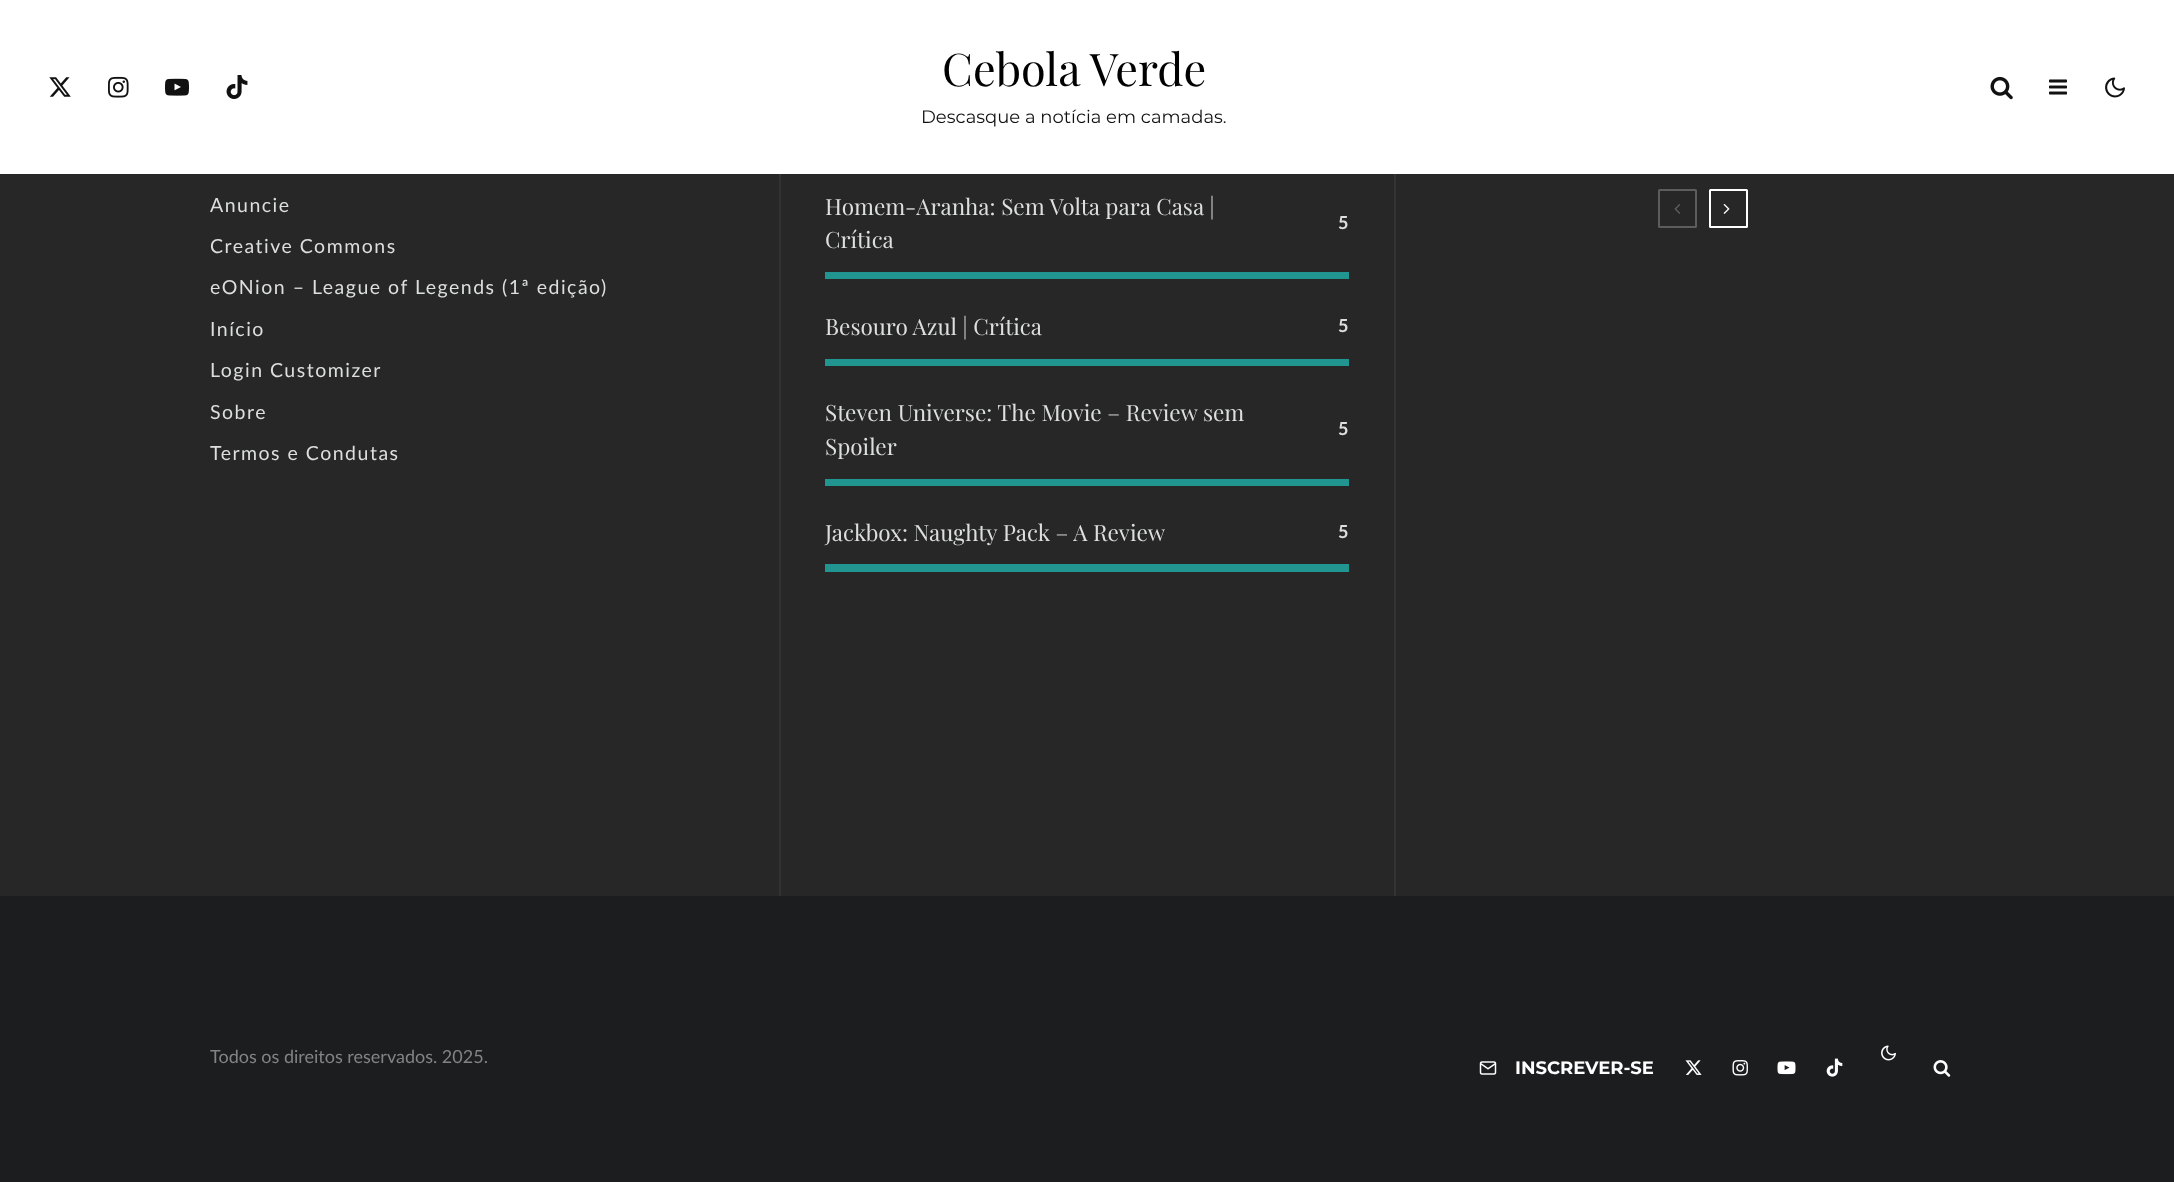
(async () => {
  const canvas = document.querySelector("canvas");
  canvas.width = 2174;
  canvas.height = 1182;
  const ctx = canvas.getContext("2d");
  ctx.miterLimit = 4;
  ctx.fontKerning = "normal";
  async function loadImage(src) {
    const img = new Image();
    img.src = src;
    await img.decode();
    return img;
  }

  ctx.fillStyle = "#272727";
  ctx.fillRect(0, 0, 2174, 1182);
  ctx.fillStyle = "#ffffff";
  ctx.fillRect(0, 0, 2174, 174);
  ctx.drawImage(await loadImage("img/1.png"), 49, 77, 22, 20);
  ctx.drawImage(await loadImage("img/2.png"), 108, 76, 21, 22);
  ctx.drawImage(await loadImage("img/3.png"), 165, 78, 24, 18);
  ctx.drawImage(await loadImage("img/4.png"), 226, 75, 22, 24);
  ctx.drawImage(await loadImage("img/5.png"), 1990, 76, 23, 24);
  ctx.drawImage(await loadImage("img/6.png"), 2049, 79, 18, 16);
  ctx.drawImage(await loadImage("img/7.png"), 2105, 77, 20, 21);
  for (const [x, y, w, h, color] of [
    [779, 174, 2, 722, "#333333"],
    [1394, 174, 2, 722, "#333333"],
    [825, 272, 524, 7, "#219690"],
    [825, 359, 524, 7, "#219690"],
    [825, 479, 524, 7, "#219690"],
    [825, 564, 524, 8, "#219690"],
  ]) {
    ctx.fillStyle = color;
    ctx.fillRect(x, y, w, h);
  }
  ctx.beginPath();
  ctx.roundRect(1659, 190, 37, 37, 0.5);
  ctx.strokeStyle = "#5d5d5d";
  ctx.lineWidth = 2;
  ctx.stroke();
  ctx.drawImage(await loadImage("img/8.png"), 1674, 204, 7, 10);
  ctx.beginPath();
  ctx.roundRect(1710, 190, 37, 37, 0.5);
  ctx.strokeStyle = "#ffffff";
  ctx.stroke();
  ctx.drawImage(await loadImage("img/9.png"), 1723, 204, 7, 10);
  ctx.fillStyle = "#1c1d1e";
  ctx.fillRect(0, 896, 2174, 286);
  ctx.drawImage(await loadImage("img/10.png"), 1881, 1045, 15, 16);
  ctx.drawImage(await loadImage("img/11.png"), 1479, 1061, 18, 14);
  ctx.drawImage(await loadImage("img/12.png"), 1685, 1060, 17, 15);
  ctx.drawImage(await loadImage("img/13.png"), 1732, 1060, 16, 16);
  ctx.drawImage(await loadImage("img/14.png"), 1777, 1061, 19, 14);
  ctx.drawImage(await loadImage("img/15.png"), 1826, 1058, 17, 19);
  ctx.drawImage(await loadImage("img/16.png"), 1933, 1060, 18, 17);
  ctx.font = "45px Playfair Display";
  ctx.fillStyle = "#000000";
  ctx.fillText("Cebola Verde", 942, 86);
  ctx.font = "18px Montserrat";
  ctx.fillStyle = "#111111";
  ctx.fillText("Descasque a notícia em camadas.", 921, 123);
  ctx.letterSpacing = "1.5px";
  ctx.font = "19.5px Lato";
  ctx.fillStyle = "#dddede";
  for (const [text, x, y] of [
    ["Anuncie", 210, 212],
    ["Creative Commons", 210, 253],
    ["eONion – League of Legends (1ª edição)", 210, 294],
    ["Início", 210, 336],
    ["Login Customizer", 210, 377],
    ["Sobre", 210, 419],
    ["Termos e Condutas", 210, 460],
  ]) {
    ctx.fillText(text, x, y);
  }
  ctx.letterSpacing = "0px";
  ctx.font = "22.5px Playfair Display";
  ctx.fillText("Homem-Aranha: Sem Volta para Casa |", 825, 215);
  ctx.fillText("Crítica", 825, 248);
  ctx.font = "bold 18px Lato";
  ctx.fillText("5", 1338, 229);
  ctx.font = "22.5px Playfair Display";
  ctx.fillText("Besouro Azul | Crítica", 825, 335);
  ctx.font = "bold 18px Lato";
  ctx.fillText("5", 1338, 332);
  ctx.font = "22.5px Playfair Display";
  ctx.fillText("Steven Universe: The Movie – Review sem", 825, 421);
  ctx.fillText("Spoiler", 825, 455);
  ctx.font = "bold 18px Lato";
  ctx.fillText("5", 1338, 435);
  ctx.font = "22.5px Playfair Display";
  ctx.fillText("Jackbox: Naughty Pack – A Review", 825, 541);
  ctx.font = "bold 18px Lato";
  ctx.fillText("5", 1338, 538);
  ctx.font = "18px Lato";
  ctx.fillStyle = "#838383";
  ctx.fillText("Todos os direitos reservados. 2025.", 210, 1063);
  ctx.font = "bold 18px Montserrat";
  ctx.fillStyle = "#ffffff";
  ctx.fillText("INSCREVER-SE", 1515, 1074);
})();
